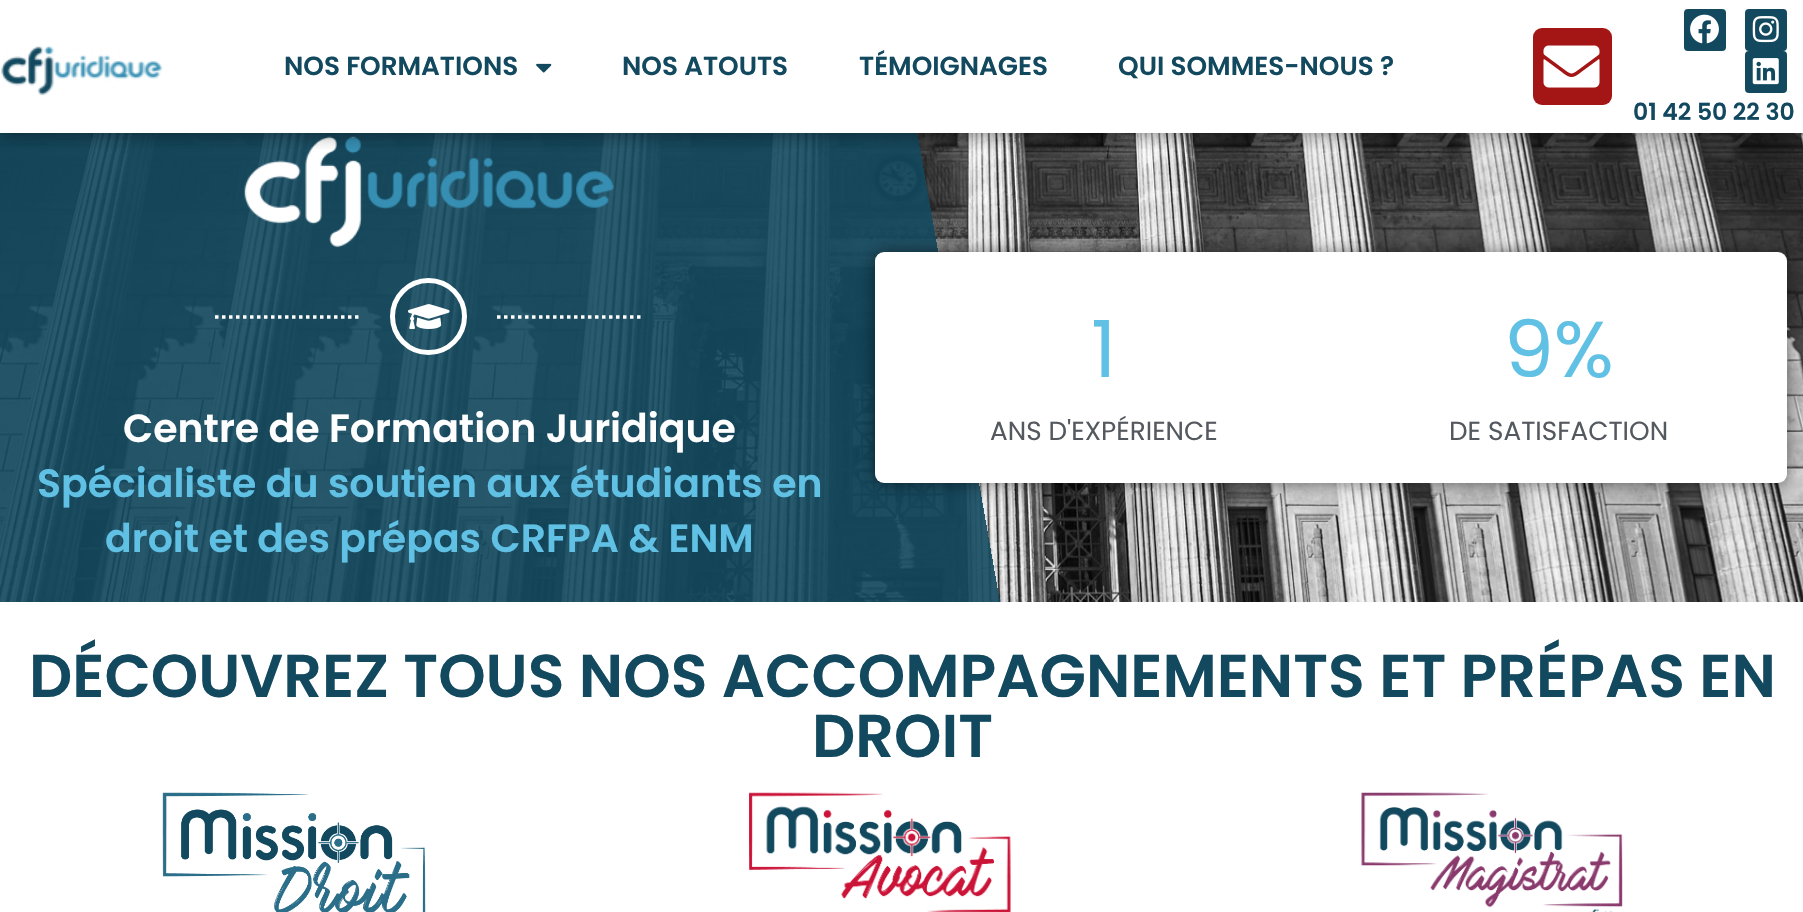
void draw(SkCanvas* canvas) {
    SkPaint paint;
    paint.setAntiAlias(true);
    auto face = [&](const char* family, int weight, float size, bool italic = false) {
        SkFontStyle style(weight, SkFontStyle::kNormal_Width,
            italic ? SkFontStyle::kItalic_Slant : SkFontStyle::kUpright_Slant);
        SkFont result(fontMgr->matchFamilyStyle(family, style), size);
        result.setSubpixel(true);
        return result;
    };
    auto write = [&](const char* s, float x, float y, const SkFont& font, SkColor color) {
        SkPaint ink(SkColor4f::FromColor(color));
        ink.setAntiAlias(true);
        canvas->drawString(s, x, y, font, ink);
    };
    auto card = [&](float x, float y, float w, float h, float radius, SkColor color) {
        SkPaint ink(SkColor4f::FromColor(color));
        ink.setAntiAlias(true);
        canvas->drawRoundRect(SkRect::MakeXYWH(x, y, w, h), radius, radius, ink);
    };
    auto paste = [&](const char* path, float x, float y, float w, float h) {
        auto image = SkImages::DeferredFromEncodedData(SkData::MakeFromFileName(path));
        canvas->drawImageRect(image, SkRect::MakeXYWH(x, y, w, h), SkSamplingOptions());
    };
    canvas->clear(SK_ColorWHITE);
    paste("pic7.png", 0, 133, 1803, 469);
    paste("pic8.png", 244, 136, 370, 112);
    canvas->save();
    canvas->clipRect(SkRect::MakeXYWH(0, 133, 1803, 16));
    paint.setColor(SkColorSetARGB(128, 0, 0, 0));
    paint.setMaskFilter(SkMaskFilter::MakeBlur(kNormal_SkBlurStyle, 9));
    canvas->drawRect(SkRect::MakeXYWH(0, 0, 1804, 133), paint);
    paint.setMaskFilter(nullptr);
    canvas->restore();
    paste("pic1.png", 1, 46, 162, 50);
    auto kFont1 = face("Poppins", 600, 26.25f);
    write("NOS FORMATIONS", 284, 75, kFont1, SkColorSetRGB(19, 73, 95));
    paste("pic2.png", 536, 63, 16, 10);
    write("NOS ATOUTS", 622, 75, kFont1, SkColorSetRGB(19, 73, 95));
    write("TÉMOIGNAGES", 859, 75, kFont1, SkColorSetRGB(19, 73, 95));
    write("QUI SOMMES-NOUS ?", 1118, 75, kFont1, SkColorSetRGB(19, 73, 95));
    card(1533, 28, 79, 77, 9, SkColorSetRGB(164, 21, 21));
    paste("pic3.png", 1543, 45, 57, 43);
    card(1684, 9, 42, 42, 4, SkColorSetRGB(19, 73, 95));
    paste("pic4.png", 1690, 14, 29, 30);
    card(1745, 9, 42, 42, 4, SkColorSetRGB(19, 73, 95));
    paste("pic5.png", 1752, 16, 27, 27);
    card(1745, 51, 42, 42, 4, SkColorSetRGB(19, 73, 95));
    paste("pic6.png", 1752, 58, 27, 27);
    auto kFont2 = face("Poppins", 600, 23.5f);
    write("01 42 50 22 30", 1633, 120, kFont2, SkColorSetRGB(19, 73, 95));
    paint.setMaskFilter(SkMaskFilter::MakeBlur(kNormal_SkBlurStyle, 9));
    canvas->drawRoundRect(SkRect::MakeXYWH(875, 252, 912, 231), 9, 9, paint);
    paint.setMaskFilter(nullptr);
    card(875, 252, 912, 231, 9, SK_ColorWHITE);
    auto kFont3 = face("Poppins", 400, 79);
    write("1", 1091, 377, kFont3, SkColorSetRGB(96, 193, 228));
    auto kFont4 = face("Poppins", 400, 26.25f);
    write("ANS D'EXPÉRIENCE", 990, 440, kFont4, SkColorSetRGB(84, 89, 95));
    write("9%", 1504, 377, kFont3, SkColorSetRGB(96, 193, 228));
    write("DE SATISFACTION", 1449, 440, kFont4, SkColorSetRGB(84, 89, 95));
    paint.setStyle(SkPaint::kStroke_Style);
    paint.setStrokeWidth(3.5f);
    paint.setColor(SK_ColorWHITE);
    paint.setPathEffect(SkDashPathEffect::Make({{3.5f, 3.5f}}, 0));
    canvas->drawPath(SkPathBuilder().moveTo(215, 317).lineTo(360.5f, 317).detach(), paint);
    paint.setPathEffect(nullptr);
    paint.setStrokeWidth(5);
    canvas->drawCircle(428.5f, 316.5f, 36, paint);
    paste("pic9.png", 408, 304, 42, 25);
    paint.setStrokeWidth(3.5f);
    paint.setPathEffect(SkDashPathEffect::Make({{3.5f, 3.5f}}, 0));
    canvas->drawPath(SkPathBuilder().moveTo(497, 317).lineTo(644, 317).detach(), paint);
    paint.setPathEffect(nullptr);
    auto kFont5 = face("Poppins", 600, 39.4f);
    write("Centre de Formation Juridique", 123, 442, kFont5, SK_ColorWHITE);
    write("Spécialiste du soutien aux étudiants en", 37, 497, kFont5, SkColorSetRGB(96, 193, 228));
    write("droit et des prépas CRFPA & ENM", 105, 552, kFont5, SkColorSetRGB(96, 193, 228));
    auto kFont6 = face("Poppins", 600, 60.4f);
    write("DÉCOUVREZ TOUS NOS ACCOMPAGNEMENTS ET PRÉPAS EN", 29, 697, kFont6, SkColorSetRGB(19, 73, 95));
    write("DROIT", 812, 757, kFont6, SkColorSetRGB(19, 73, 95));
    paste("pic10.png", 162, 792, 264, 120);
    paste("pic11.png", 749, 792, 262, 120);
    paste("pic12.png", 1361, 792, 262, 120);
}
